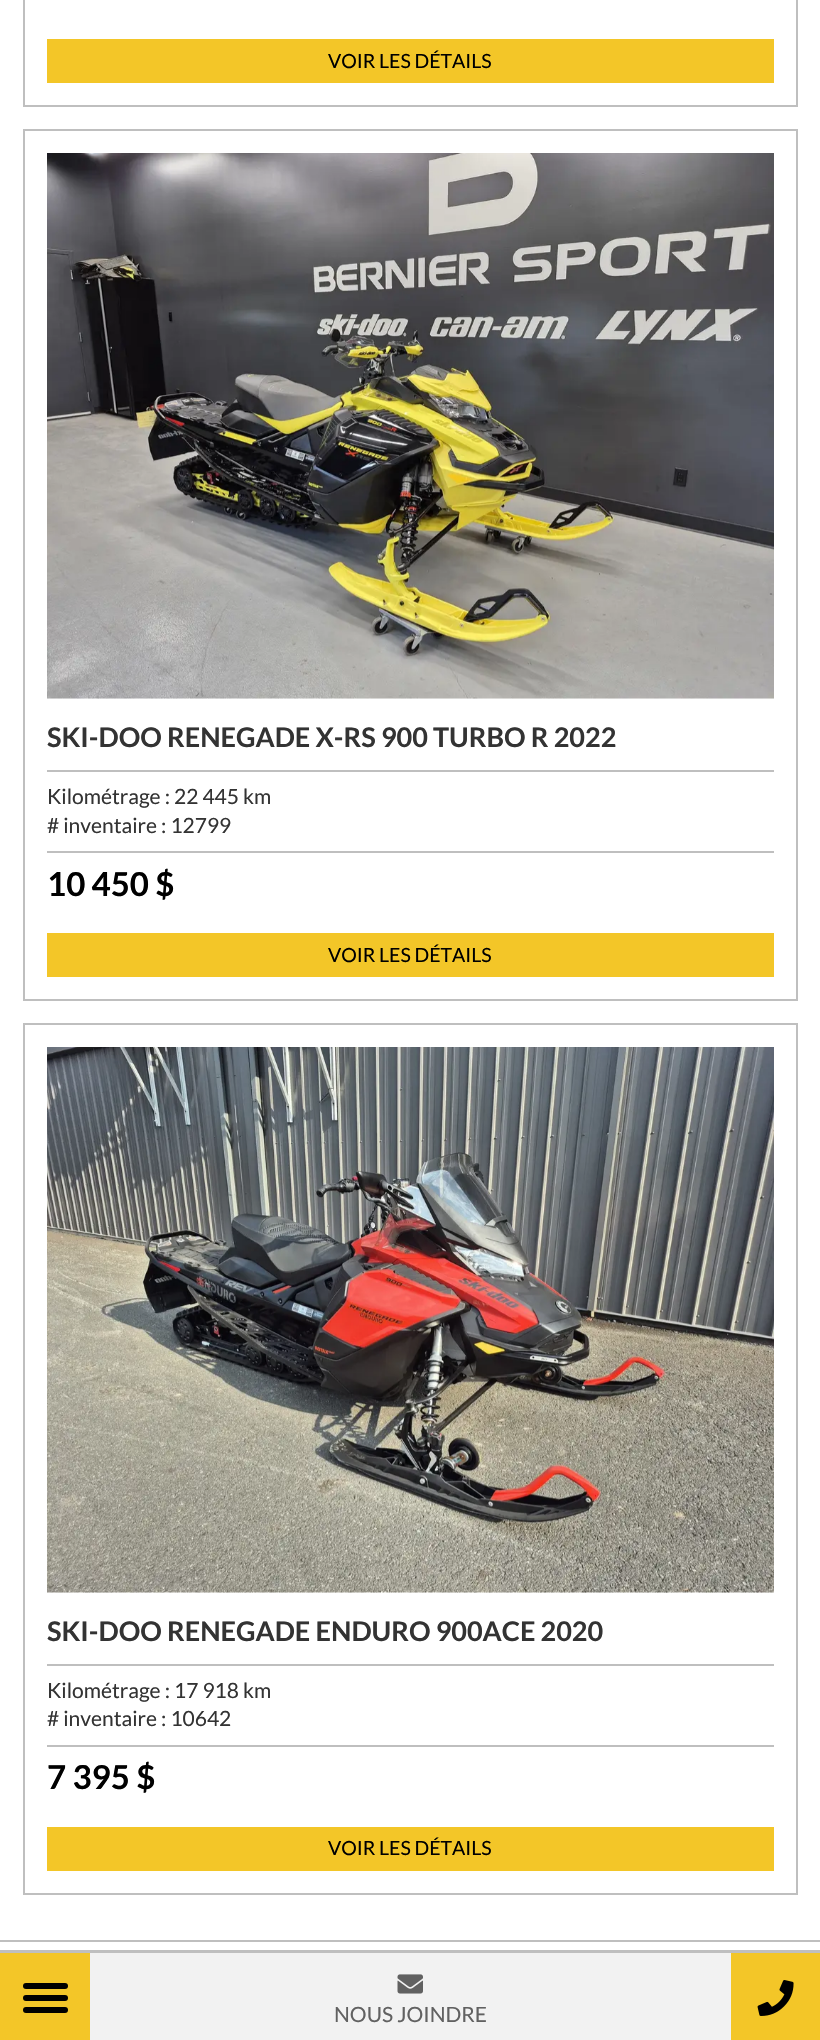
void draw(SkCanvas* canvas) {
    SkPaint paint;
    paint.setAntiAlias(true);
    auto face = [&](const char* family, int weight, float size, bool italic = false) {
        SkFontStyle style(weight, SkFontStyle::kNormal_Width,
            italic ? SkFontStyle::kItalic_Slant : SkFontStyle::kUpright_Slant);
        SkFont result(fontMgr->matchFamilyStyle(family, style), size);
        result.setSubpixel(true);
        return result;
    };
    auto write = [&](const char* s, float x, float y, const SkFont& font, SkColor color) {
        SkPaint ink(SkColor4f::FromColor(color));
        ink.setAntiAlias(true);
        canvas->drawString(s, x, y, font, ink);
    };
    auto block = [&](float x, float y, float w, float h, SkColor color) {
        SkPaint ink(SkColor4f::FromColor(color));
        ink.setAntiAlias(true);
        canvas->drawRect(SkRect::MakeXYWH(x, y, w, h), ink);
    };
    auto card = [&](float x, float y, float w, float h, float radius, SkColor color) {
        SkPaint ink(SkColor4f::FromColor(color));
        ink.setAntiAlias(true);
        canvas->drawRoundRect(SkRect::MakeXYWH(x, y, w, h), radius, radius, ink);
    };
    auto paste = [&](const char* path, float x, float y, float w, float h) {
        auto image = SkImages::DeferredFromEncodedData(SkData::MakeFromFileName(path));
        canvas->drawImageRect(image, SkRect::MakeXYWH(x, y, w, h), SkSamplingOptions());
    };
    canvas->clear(SK_ColorWHITE);
    paint.setStyle(SkPaint::kStroke_Style);
    paint.setStrokeWidth(2);
    paint.setColor(SkColorSetRGB(191, 191, 191));
    canvas->drawRect(SkRect::MakeXYWH(24, -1, 773, 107), paint);
    block(47, 39, 727, 44, SkColorSetRGB(243, 198, 40));
    auto kFont1 = face("Lato", 400, 19.5f);
    write("VOIR LES DÉTAILS", 328, 68, kFont1, SK_ColorBLACK);
    canvas->drawRect(SkRect::MakeXYWH(24, 130, 773, 870), paint);
    paste("pic1.png", 47, 153, 727, 546);
    auto kFont2 = face("Lato", 700, 27);
    write("SKI-DOO RENEGADE X-RS 900 TURBO R 2022", 47, 747, kFont2, SkColorSetRGB(51, 51, 51));
    block(47, 770, 727, 2, SkColorSetRGB(191, 191, 191));
    auto kFont3 = face("Lato", 400, 21);
    write("Kilométrage : 22 445 km", 47, 804, kFont3, SkColorSetRGB(51, 51, 51));
    write("# inventaire : 12799", 47, 833, kFont3, SkColorSetRGB(51, 51, 51));
    block(47, 851, 727, 2, SkColorSetRGB(191, 191, 191));
    auto kFont4 = face("Lato", 700, 33);
    write("10 450 $", 47, 896, kFont4, SK_ColorBLACK);
    block(47, 933, 727, 44, SkColorSetRGB(243, 198, 40));
    write("VOIR LES DÉTAILS", 328, 962, kFont1, SK_ColorBLACK);
    canvas->drawRect(SkRect::MakeXYWH(24, 1024, 773, 870), paint);
    paste("pic2.png", 47, 1047, 727, 546);
    write("SKI-DOO RENEGADE ENDURO 900ACE 2020", 47, 1641, kFont2, SkColorSetRGB(51, 51, 51));
    block(47, 1664, 727, 2, SkColorSetRGB(191, 191, 191));
    write("Kilométrage : 17 918 km", 47, 1698, kFont3, SkColorSetRGB(51, 51, 51));
    write("# inventaire : 10642", 47, 1726, kFont3, SkColorSetRGB(51, 51, 51));
    block(47, 1745, 727, 2, SkColorSetRGB(191, 191, 191));
    write("7 395 $", 47, 1789, kFont4, SK_ColorBLACK);
    block(47, 1827, 727, 44, SkColorSetRGB(243, 198, 40));
    write("VOIR LES DÉTAILS", 328, 1855, kFont1, SK_ColorBLACK);
    block(0, 1940, 820, 2, SkColorSetRGB(191, 191, 191));
    block(90, 1953, 641, 87, SkColorSetRGB(242, 242, 242));
    block(0, 1950, 820, 3, SkColorSetRGB(191, 191, 191));
    block(0, 1953, 90, 87, SkColorSetRGB(243, 198, 40));
    card(23, 1995, 45, 6, 3, SK_ColorBLACK);
    card(23, 1983, 45, 6, 3, SK_ColorBLACK);
    card(23, 2007, 45, 6, 3, SK_ColorBLACK);
    paste("pic3.png", 397, 1974, 26, 20);
    write("NOUS JOINDRE", 334, 2022, kFont3, SkColorSetRGB(97, 97, 97));
    block(731, 1953, 89, 87, SkColorSetRGB(243, 198, 40));
    paste("pic4.png", 757, 1980, 37, 36);
}
